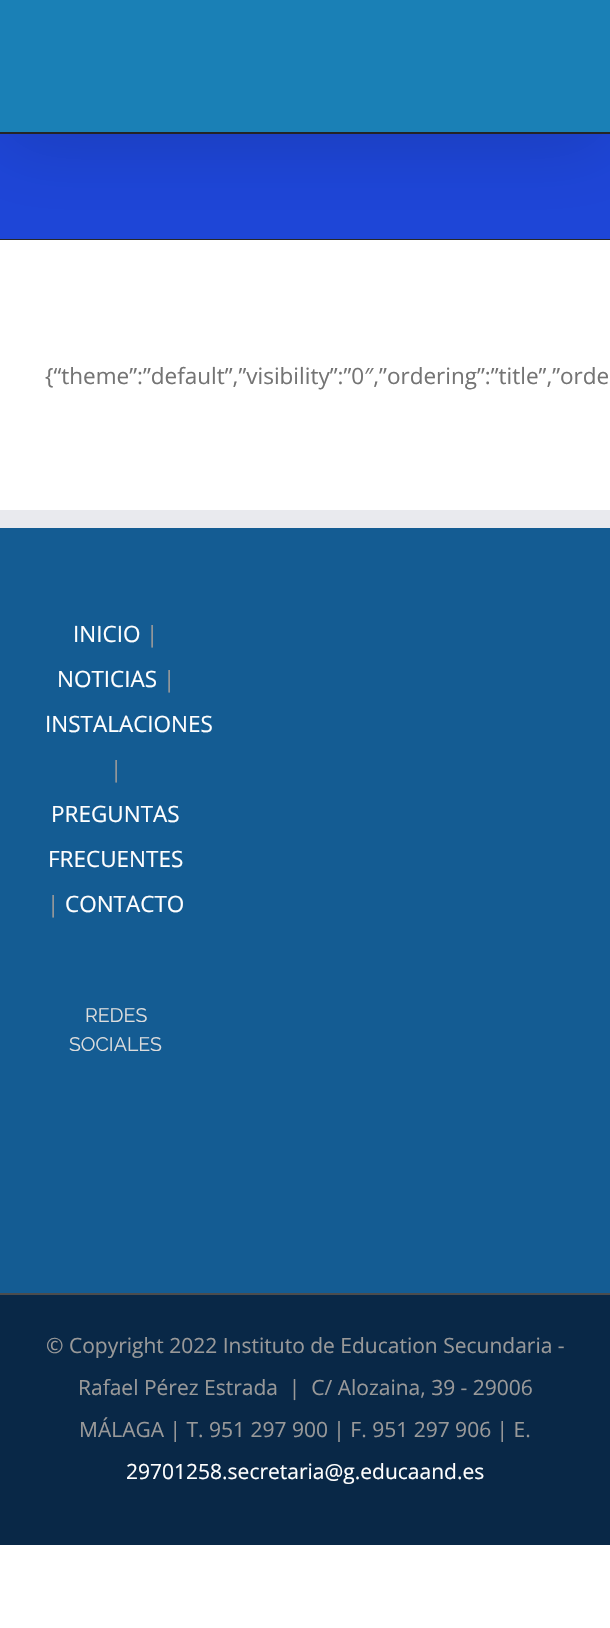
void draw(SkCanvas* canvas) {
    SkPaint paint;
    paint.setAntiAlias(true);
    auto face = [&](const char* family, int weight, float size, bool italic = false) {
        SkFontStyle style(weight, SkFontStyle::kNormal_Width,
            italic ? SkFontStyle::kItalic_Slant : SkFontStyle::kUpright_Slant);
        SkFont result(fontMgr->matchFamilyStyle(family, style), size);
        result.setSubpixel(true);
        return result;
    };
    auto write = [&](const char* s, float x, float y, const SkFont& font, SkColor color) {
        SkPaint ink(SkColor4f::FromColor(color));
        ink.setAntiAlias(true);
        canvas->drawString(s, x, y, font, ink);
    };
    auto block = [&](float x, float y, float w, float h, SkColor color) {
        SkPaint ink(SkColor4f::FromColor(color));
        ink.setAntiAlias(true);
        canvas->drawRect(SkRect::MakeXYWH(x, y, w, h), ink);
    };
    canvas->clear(SK_ColorWHITE);
    block(0, 134, 610, 105, SkColorSetRGB(30, 70, 216));
    block(0, 132, 610, 2, SkColorSetRGB(40, 40, 40));
    block(0, 239, 610, 1, SkColorSetRGB(40, 40, 40));
    paint.setColor(SkColorSetARGB(36, 0, 0, 0));
    paint.setMaskFilter(SkMaskFilter::MakeBlur(kNormal_SkBlurStyle, 37.5f));
    canvas->drawRect(SkRect::MakeXYWH(3, 18, 605, 126), paint);
    paint.setMaskFilter(nullptr);
    block(0, 0, 610, 132, SkColorSetRGB(26, 128, 182));
    auto kFont1 = face("Open Sans", 400, 22.5f);
    write("{“theme”:”default”,”visibility”:”0″,”ordering”:”title”,”orde", 45, 384, kFont1, SkColorSetRGB(116, 116, 116));
    block(0, 528, 610, 765, SkColorSetRGB(20, 92, 147));
    block(0, 510, 610, 18, SkColorSetRGB(233, 234, 238));
    write("INICIO", 73, 642, kFont1, SK_ColorWHITE);
    write("|", 146, 642, kFont1, SkColorSetRGB(153, 153, 153));
    write("NOTICIAS", 57, 687, kFont1, SK_ColorWHITE);
    write("|", 163, 687, kFont1, SkColorSetRGB(153, 153, 153));
    write("INSTALACIONES", 45, 732, kFont1, SK_ColorWHITE);
    write("|", 110, 777, kFont1, SkColorSetRGB(153, 153, 153));
    write("PREGUNTAS", 51, 822, kFont1, SK_ColorWHITE);
    write("FRECUENTES", 48, 867, kFont1, SK_ColorWHITE);
    write("|", 47, 912, kFont1, SkColorSetRGB(153, 153, 153));
    write("CONTACTO", 65, 912, kFont1, SK_ColorWHITE);
    auto kFont2 = face("Raleway", 100, 19.5f);
    write("REDES", 85, 1022, kFont2, SkColorSetRGB(221, 221, 221));
    write("SOCIALES", 69, 1051, kFont2, SkColorSetRGB(221, 221, 221));
    block(0, 1295, 610, 250, SkColorSetRGB(9, 40, 71));
    block(0, 1293, 610, 2, SkColorSetRGB(75, 76, 77));
    auto kFont3 = face("Open Sans", 400, 21);
    write("© Copyright 2022 Instituto de Education Secundaria -", 46, 1353, kFont3, SkColorSetRGB(153, 153, 153));
    write("Rafael Pérez Estrada  |  C/ Alozaina, 39 - 29006", 78, 1395, kFont3, SkColorSetRGB(153, 153, 153));
    write("MÁLAGA | T. 951 297 900 | F. 951 297 906 | E.", 79, 1437, kFont3, SkColorSetRGB(153, 153, 153));
    write("29701258.secretaria@g.educaand.es", 126, 1479, kFont3, SK_ColorWHITE);
}
